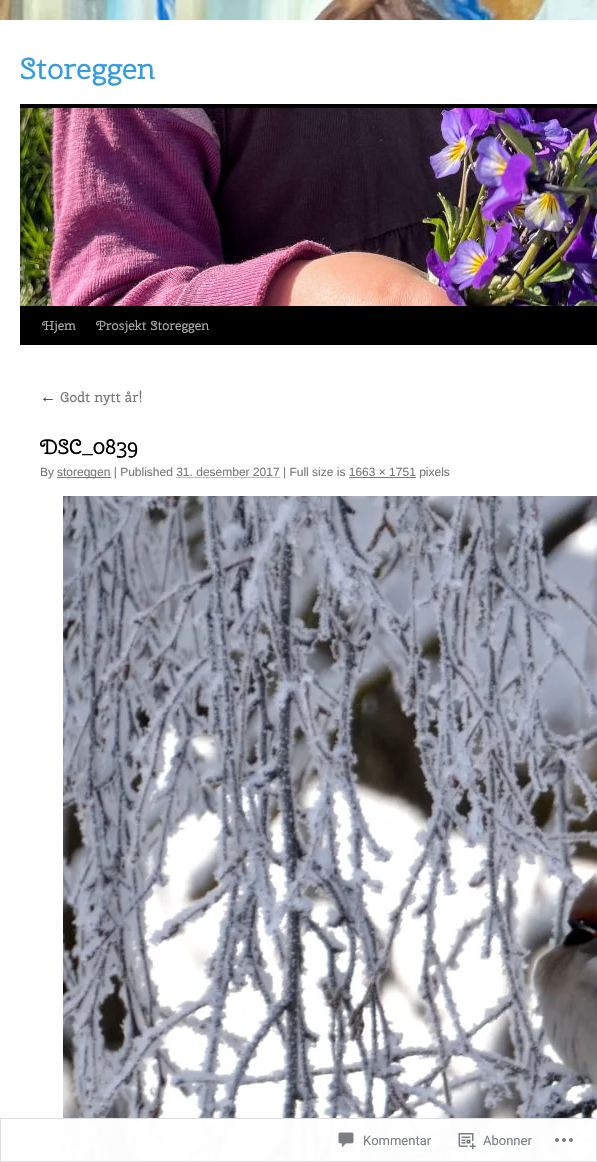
void draw(SkCanvas* canvas) {
    SkPaint paint;
    paint.setAntiAlias(true);
    auto face = [&](const char* family, int weight, float size, bool italic = false) {
        SkFontStyle style(weight, SkFontStyle::kNormal_Width,
            italic ? SkFontStyle::kItalic_Slant : SkFontStyle::kUpright_Slant);
        SkFont result(fontMgr->matchFamilyStyle(family, style), size);
        result.setSubpixel(true);
        return result;
    };
    auto write = [&](const char* s, float x, float y, const SkFont& font, SkColor color) {
        SkPaint ink(SkColor4f::FromColor(color));
        ink.setAntiAlias(true);
        canvas->drawString(s, x, y, font, ink);
    };
    auto block = [&](float x, float y, float w, float h, SkColor color) {
        SkPaint ink(SkColor4f::FromColor(color));
        ink.setAntiAlias(true);
        canvas->drawRect(SkRect::MakeXYWH(x, y, w, h), ink);
    };
    auto paste = [&](const char* path, float x, float y, float w, float h) {
        auto image = SkImages::DeferredFromEncodedData(SkData::MakeFromFileName(path));
        canvas->drawImageRect(image, SkRect::MakeXYWH(x, y, w, h), SkSamplingOptions());
    };
    canvas->clear(SK_ColorWHITE);
    paste("pic1.png", 0, 0, 597, 20);
    auto kFont1 = face("Cherry Swash", 400, 30);
    write("Storeggen", 20, 79, kFont1, SkColorSetRGB(52, 157, 226));
    block(20, 104, 577, 4, SK_ColorBLACK);
    block(20, 306, 577, 39, SK_ColorBLACK);
    paste("pic2.png", 20, 108, 577, 198);
    auto kFont2 = face("Cherry Swash", 400, 13);
    write("Hjem", 42, 330, kFont2, SkColorSetRGB(170, 170, 170));
    write("Prosjekt Storeggen", 96, 330, kFont2, SkColorSetRGB(170, 170, 170));
    auto kFont3 = face("Liberation Sans", 400, 16);
    write("←", 40, 402, kFont3, SkColorSetRGB(51, 51, 51));
    auto kFont4 = face("Cherry Swash", 400, 14);
    write("Godt nytt år!", 60, 402, kFont4, SkColorSetRGB(119, 119, 119));
    auto kFont5 = face("Cherry Swash", 400, 21);
    write("DSC_0839", 40, 454, kFont5, SK_ColorBLACK);
    auto kFont6 = face("Liberation Sans", 400, 12);
    write("By", 40, 476, kFont6, SkColorSetRGB(119, 119, 119));
    block(57, 477, 54, 1, SkColorSetRGB(119, 119, 119));
    write("storeggen | Published 31. desember 2017 | Full size is 1663 × 1751 pixels", 57, 476, kFont6, SkColorSetRGB(119, 119, 119));
    paint.setStyle(SkPaint::kStroke_Style);
    paint.setStrokeWidth(1);
    paint.setColor(SkColorSetRGB(119, 119, 119));
    paint.setPathEffect(SkDashPathEffect::Make({{1, 1}}, 0));
    canvas->drawPath(SkPathBuilder().moveTo(176.5f, 477.5f).lineTo(280, 477.5f).detach(), paint);
    paint.setPathEffect(nullptr);
    block(349, 477, 67, 1, SkColorSetRGB(119, 119, 119));
    paste("pic3.png", 63, 496, 534, 666);
    block(63, 1118, 534, 44, SkColorSetARGB(250, 255, 255, 255));
    paint.setColor(SkColorSetARGB(250, 220, 220, 222));
    canvas->drawRect(SkRect::MakeXYWH(0.5f, 1118.5f, 596, 43), paint);
    paste("pic4.png", 338, 1132, 16, 16);
    auto kFont7 = face("Roboto", 400, 13);
    write("Kommentar", 363, 1145, kFont7, SkColorSetRGB(123, 127, 132));
    paste("pic5.png", 458, 1133, 18, 17);
    write("Abonner", 483, 1145, kFont7, SkColorSetRGB(123, 127, 132));
    paste("pic6.png", 555, 1138, 18, 4);
}
